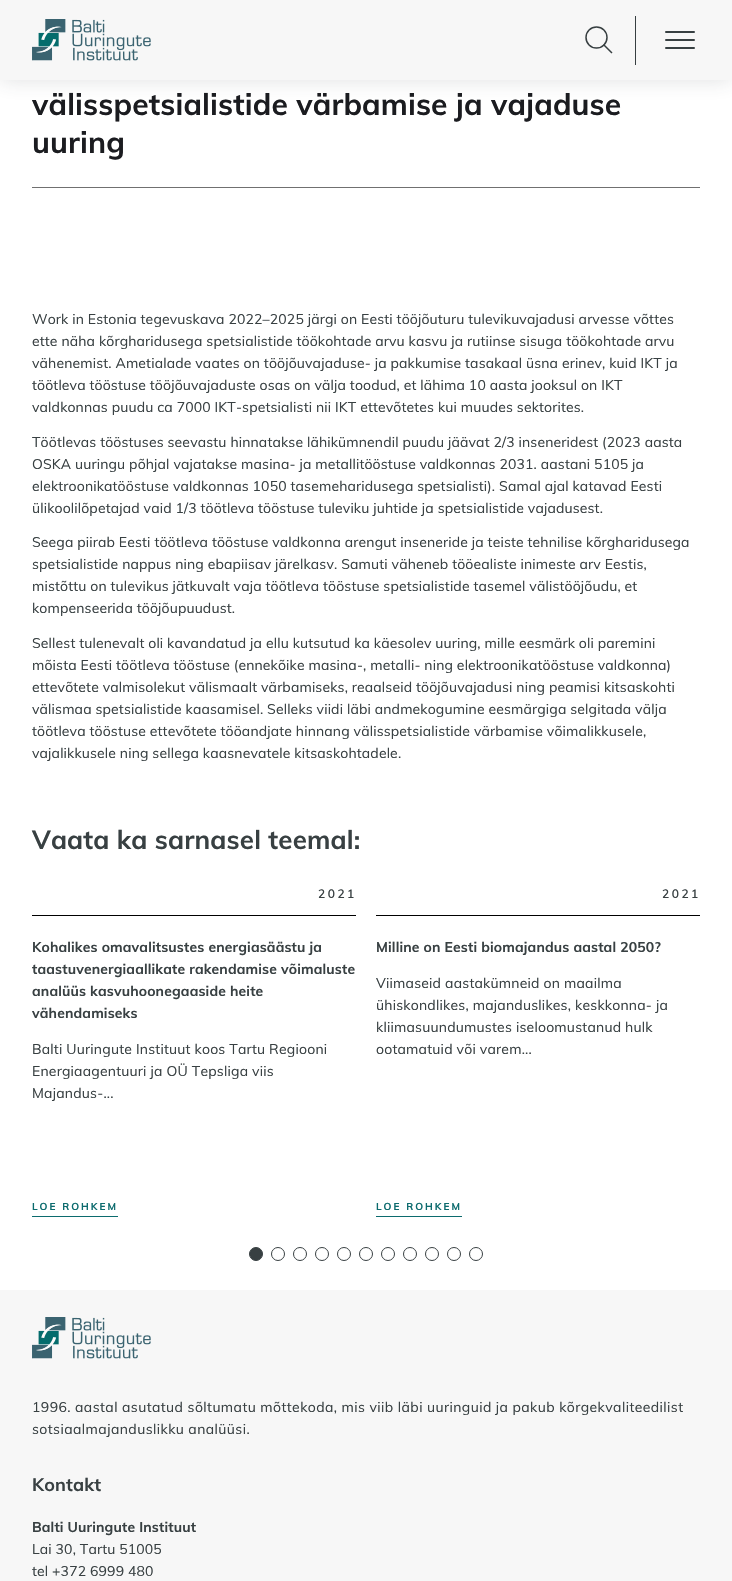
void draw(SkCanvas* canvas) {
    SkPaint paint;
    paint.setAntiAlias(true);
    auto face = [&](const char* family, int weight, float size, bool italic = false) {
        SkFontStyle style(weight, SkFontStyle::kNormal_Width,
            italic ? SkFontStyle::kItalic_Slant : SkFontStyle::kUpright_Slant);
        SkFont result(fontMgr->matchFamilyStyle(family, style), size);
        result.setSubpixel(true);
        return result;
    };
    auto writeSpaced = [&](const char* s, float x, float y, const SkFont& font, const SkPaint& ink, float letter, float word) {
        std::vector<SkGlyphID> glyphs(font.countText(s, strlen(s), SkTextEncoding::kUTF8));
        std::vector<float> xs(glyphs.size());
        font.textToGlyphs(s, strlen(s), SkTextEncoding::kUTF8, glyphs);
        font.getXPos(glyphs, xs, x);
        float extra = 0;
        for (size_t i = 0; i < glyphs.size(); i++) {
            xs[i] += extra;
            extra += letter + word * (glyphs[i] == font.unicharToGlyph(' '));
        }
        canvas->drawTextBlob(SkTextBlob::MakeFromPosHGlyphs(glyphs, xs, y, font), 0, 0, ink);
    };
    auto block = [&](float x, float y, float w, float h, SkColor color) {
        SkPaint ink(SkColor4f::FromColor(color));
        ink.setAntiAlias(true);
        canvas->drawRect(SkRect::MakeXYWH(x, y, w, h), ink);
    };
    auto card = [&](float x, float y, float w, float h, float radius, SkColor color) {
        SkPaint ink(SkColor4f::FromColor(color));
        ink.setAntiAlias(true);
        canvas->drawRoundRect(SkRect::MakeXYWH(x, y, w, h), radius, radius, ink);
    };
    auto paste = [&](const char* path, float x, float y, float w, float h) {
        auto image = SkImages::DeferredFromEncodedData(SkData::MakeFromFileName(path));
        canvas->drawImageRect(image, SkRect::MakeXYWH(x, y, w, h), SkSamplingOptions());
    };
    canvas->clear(SK_ColorWHITE);
    paint.setColor(SkColorSetARGB(41, 56, 64, 66));
    paint.setMaskFilter(SkMaskFilter::MakeBlur(kNormal_SkBlurStyle, 10));
    canvas->drawRect(SkRect::MakeXYWH(0, 0, 732, 80), paint);
    paint.setMaskFilter(nullptr);
    block(0, 0, 732, 80, SkColorSetRGB(247, 247, 247));
    paste("pic1.png", 32, 19, 119, 42);
    paint.setStyle(SkPaint::kStroke_Style);
    paint.setStrokeWidth(1.5f);
    paint.setColor(SkColorSetRGB(55, 63, 65));
    canvas->drawCircle(596.5f, 37.5f, 10.5f, paint);
    canvas->drawPath(SkPathBuilder().moveTo(603.5f, 44.5f).lineTo(612, 53).detach(), paint);
    block(635, 16, 1, 49, SkColorSetRGB(55, 63, 65));
    card(665, 31, 30, 2, 1, SkColorSetRGB(56, 64, 66));
    card(665, 39, 30, 2, 1, SkColorSetRGB(56, 64, 66));
    card(665, 47, 30, 2, 1, SkColorSetRGB(56, 64, 66));
    auto kFont1 = face("Muli", 700, 30);
    paint.setStyle(SkPaint::kFill_Style);
    paint.setColor(SkColorSetRGB(27, 28, 32));
    writeSpaced("välisspetsialistide värbamise ja vajaduse", 32, 115, kFont1, paint, 0.14f, 0);
    writeSpaced("uuring", 32, 153, kFont1, paint, 0.14f, 0);
    block(32, 187, 668, 1, SkColorSetRGB(112, 112, 112));
    auto kFont2 = face("Muli", 400, 14);
    paint.setColor(SkColorSetRGB(56, 64, 66));
    writeSpaced("Work in Estonia tegevuskava 2022–2025 järgi on Eesti tööjõuturu tulevikuvajadusi arvesse võttes", 32, 324, kFont2, paint, 0.14f, 0);
    writeSpaced("ette näha kõrgharidusega spetsialistide töökohtade arvu kasvu ja rutiinse sisuga töökohtade arvu", 32, 346, kFont2, paint, 0.14f, 0);
    writeSpaced("vähenemist. Ametialade vaates on tööjõuvajaduse- ja pakkumise tasakaal üsna erinev, kuid IKT ja", 32, 368, kFont2, paint, 0.14f, 0);
    writeSpaced("töötleva tööstuse tööjõuvajaduste osas on välja toodud, et lähima 10 aasta jooksul on IKT", 32, 390, kFont2, paint, 0.14f, 0);
    writeSpaced("valdkonnas puudu ca 7000 IKT-spetsialisti nii IKT ettevõtetes kui muudes sektorites.", 32, 412, kFont2, paint, 0.14f, 0);
    writeSpaced("Töötlevas tööstuses seevastu hinnatakse lähikümnendil puudu jäävat 2/3 inseneridest (2023 aasta", 32, 447, kFont2, paint, 0.14f, 0);
    writeSpaced("OSKA uuringu põhjal vajatakse masina- ja metallitööstuse valdkonnas 2031. aastani 5105 ja", 32, 469, kFont2, paint, 0.14f, 0);
    writeSpaced("elektroonikatööstuse valdkonnas 1050 tasemeharidusega spetsialisti). Samal ajal katavad Eesti", 32, 491, kFont2, paint, 0.14f, 0);
    writeSpaced("ülikoolilõpetajad vaid 1/3 töötleva tööstuse tuleviku juhtide ja spetsialistide vajadusest.", 32, 513, kFont2, paint, 0.14f, 0);
    writeSpaced("Seega piirab Eesti töötleva tööstuse valdkonna arengut inseneride ja teiste tehnilise kõrgharidusega", 32, 547, kFont2, paint, 0.14f, 0);
    writeSpaced("spetsialistide nappus ning ebapiisav järelkasv. Samuti väheneb tööealiste inimeste arv Eestis,", 32, 569, kFont2, paint, 0.14f, 0);
    writeSpaced("mistõttu on tulevikus jätkuvalt vaja töötleva tööstuse spetsialistide tasemel välistööjõudu, et", 32, 591, kFont2, paint, 0.14f, 0);
    writeSpaced("kompenseerida tööjõupuudust.", 32, 613, kFont2, paint, 0.14f, 0);
    writeSpaced("Sellest tulenevalt oli kavandatud ja ellu kutsutud ka käesolev uuring, mille eesmärk oli paremini", 32, 648, kFont2, paint, 0.14f, 0);
    writeSpaced("mõista Eesti töötleva tööstuse (ennekõike masina-, metalli- ning elektroonikatööstuse valdkonna)", 32, 670, kFont2, paint, 0.14f, 0);
    writeSpaced("ettevõtete valmisolekut välismaalt värbamiseks, reaalseid tööjõuvajadusi ning peamisi kitsaskohti", 32, 692, kFont2, paint, 0.14f, 0);
    writeSpaced("välismaa spetsialistide kaasamisel. Selleks viidi läbi andmekogumine eesmärgiga selgitada välja", 32, 714, kFont2, paint, 0.14f, 0);
    writeSpaced("töötleva tööstuse ettevõtete tööandjate hinnang välisspetsialistide värbamise võimalikkusele,", 32, 736, kFont2, paint, 0.14f, 0);
    writeSpaced("vajalikkusele ning sellega kaasnevatele kitsaskohtadele.", 32, 758, kFont2, paint, 0.14f, 0);
    auto kFont3 = face("Muli", 700, 26);
    writeSpaced("Vaata ka sarnasel teemal:", 32, 849, kFont3, paint, 0.14f, 0);
    block(32, 915, 324, 1, SK_ColorBLACK);
    auto kFont4 = face("Muli", 600, 12);
    writeSpaced("2021", 318, 898, kFont4, paint, 2.5f, 0);
    auto kFont5 = face("Muli", 700, 14);
    writeSpaced("Kohalikes omavalitsustes energiasäästu ja", 32, 952, kFont5, paint, 0.14f, 0);
    writeSpaced("taastuvenergiaallikate rakendamise võimaluste", 32, 974, kFont5, paint, 0.14f, 0);
    writeSpaced("analüüs kasvuhoonegaaside heite", 32, 996, kFont5, paint, 0.14f, 0);
    writeSpaced("vähendamiseks", 32, 1018, kFont5, paint, 0.14f, 0);
    writeSpaced("Balti Uuringute Instituut koos Tartu Regiooni", 32, 1054, kFont2, paint, 0.2f, 0);
    writeSpaced("Energiaagentuuri ja OÜ Tepsliga viis", 32, 1076, kFont2, paint, 0.2f, 0);
    writeSpaced("Majandus-...", 32, 1098, kFont2, paint, 0.2f, 0);
    auto kFont6 = face("Muli", 700, 10);
    paint.setColor(SkColorSetRGB(12, 107, 110));
    writeSpaced("LOE ROHKEM", 32, 1210, kFont6, paint, 2, 0);
    block(32, 1216, 86, 1, SkColorSetRGB(12, 107, 110));
    block(376, 915, 324, 1, SK_ColorBLACK);
    paint.setColor(SkColorSetRGB(56, 64, 66));
    writeSpaced("2021", 662, 898, kFont4, paint, 2.5f, 0);
    writeSpaced("Milline on Eesti biomajandus aastal 2050?", 376, 952, kFont5, paint, 0.14f, 0);
    writeSpaced("Viimaseid aastakümneid on maailma", 376, 988, kFont2, paint, 0.2f, 0);
    writeSpaced("ühiskondlikes, majanduslikes, keskkonna- ja", 376, 1010, kFont2, paint, 0.2f, 0);
    writeSpaced("kliimasuundumustes iseloomustanud hulk", 376, 1032, kFont2, paint, 0.2f, 0);
    writeSpaced("ootamatuid või varem...", 376, 1054, kFont2, paint, 0.2f, 0);
    paint.setColor(SkColorSetRGB(12, 107, 110));
    writeSpaced("LOE ROHKEM", 376, 1210, kFont6, paint, 2, 0);
    block(376, 1216, 86, 1, SkColorSetRGB(12, 107, 110));
    paint.setColor(SkColorSetRGB(56, 64, 66));
    canvas->drawCircle(256, 1254, 6.5f, paint);
    paint.setStyle(SkPaint::kStroke_Style);
    paint.setStrokeWidth(1);
    canvas->drawCircle(256, 1254, 6.5f, paint);
    canvas->drawCircle(278, 1254, 6.5f, paint);
    canvas->drawCircle(300, 1254, 6.5f, paint);
    canvas->drawCircle(322, 1254, 6.5f, paint);
    canvas->drawCircle(344, 1254, 6.5f, paint);
    canvas->drawCircle(366, 1254, 6.5f, paint);
    canvas->drawCircle(388, 1254, 6.5f, paint);
    canvas->drawCircle(410, 1254, 6.5f, paint);
    canvas->drawCircle(432, 1254, 6.5f, paint);
    canvas->drawCircle(454, 1254, 6.5f, paint);
    canvas->drawCircle(476, 1254, 6.5f, paint);
    block(0, 1290, 732, 291, SkColorSetRGB(247, 247, 247));
    paste("pic1.png", 32, 1317, 119, 42);
    paint.setStyle(SkPaint::kFill_Style);
    writeSpaced("1996. aastal asutatud sõltumatu mõttekoda, mis viib läbi uuringuid ja pakub kõrgekvaliteedilist", 32, 1412, kFont2, paint, 0.42f, 0);
    writeSpaced("sotsiaalmajanduslikku analüüsi.", 32, 1434, kFont2, paint, 0.42f, 0);
    auto kFont7 = face("Muli", 700, 18);
    writeSpaced("Kontakt", 32, 1491, kFont7, paint, 0.14f, 0);
    writeSpaced("Balti Uuringute Instituut", 32, 1532, kFont5, paint, 0.14f, 0);
    writeSpaced("Lai 30, Tartu 51005", 32, 1554, kFont2, paint, 0.14f, 0);
    writeSpaced("tel +372 6999 480", 32, 1576, kFont2, paint, 0.14f, 0);
}
